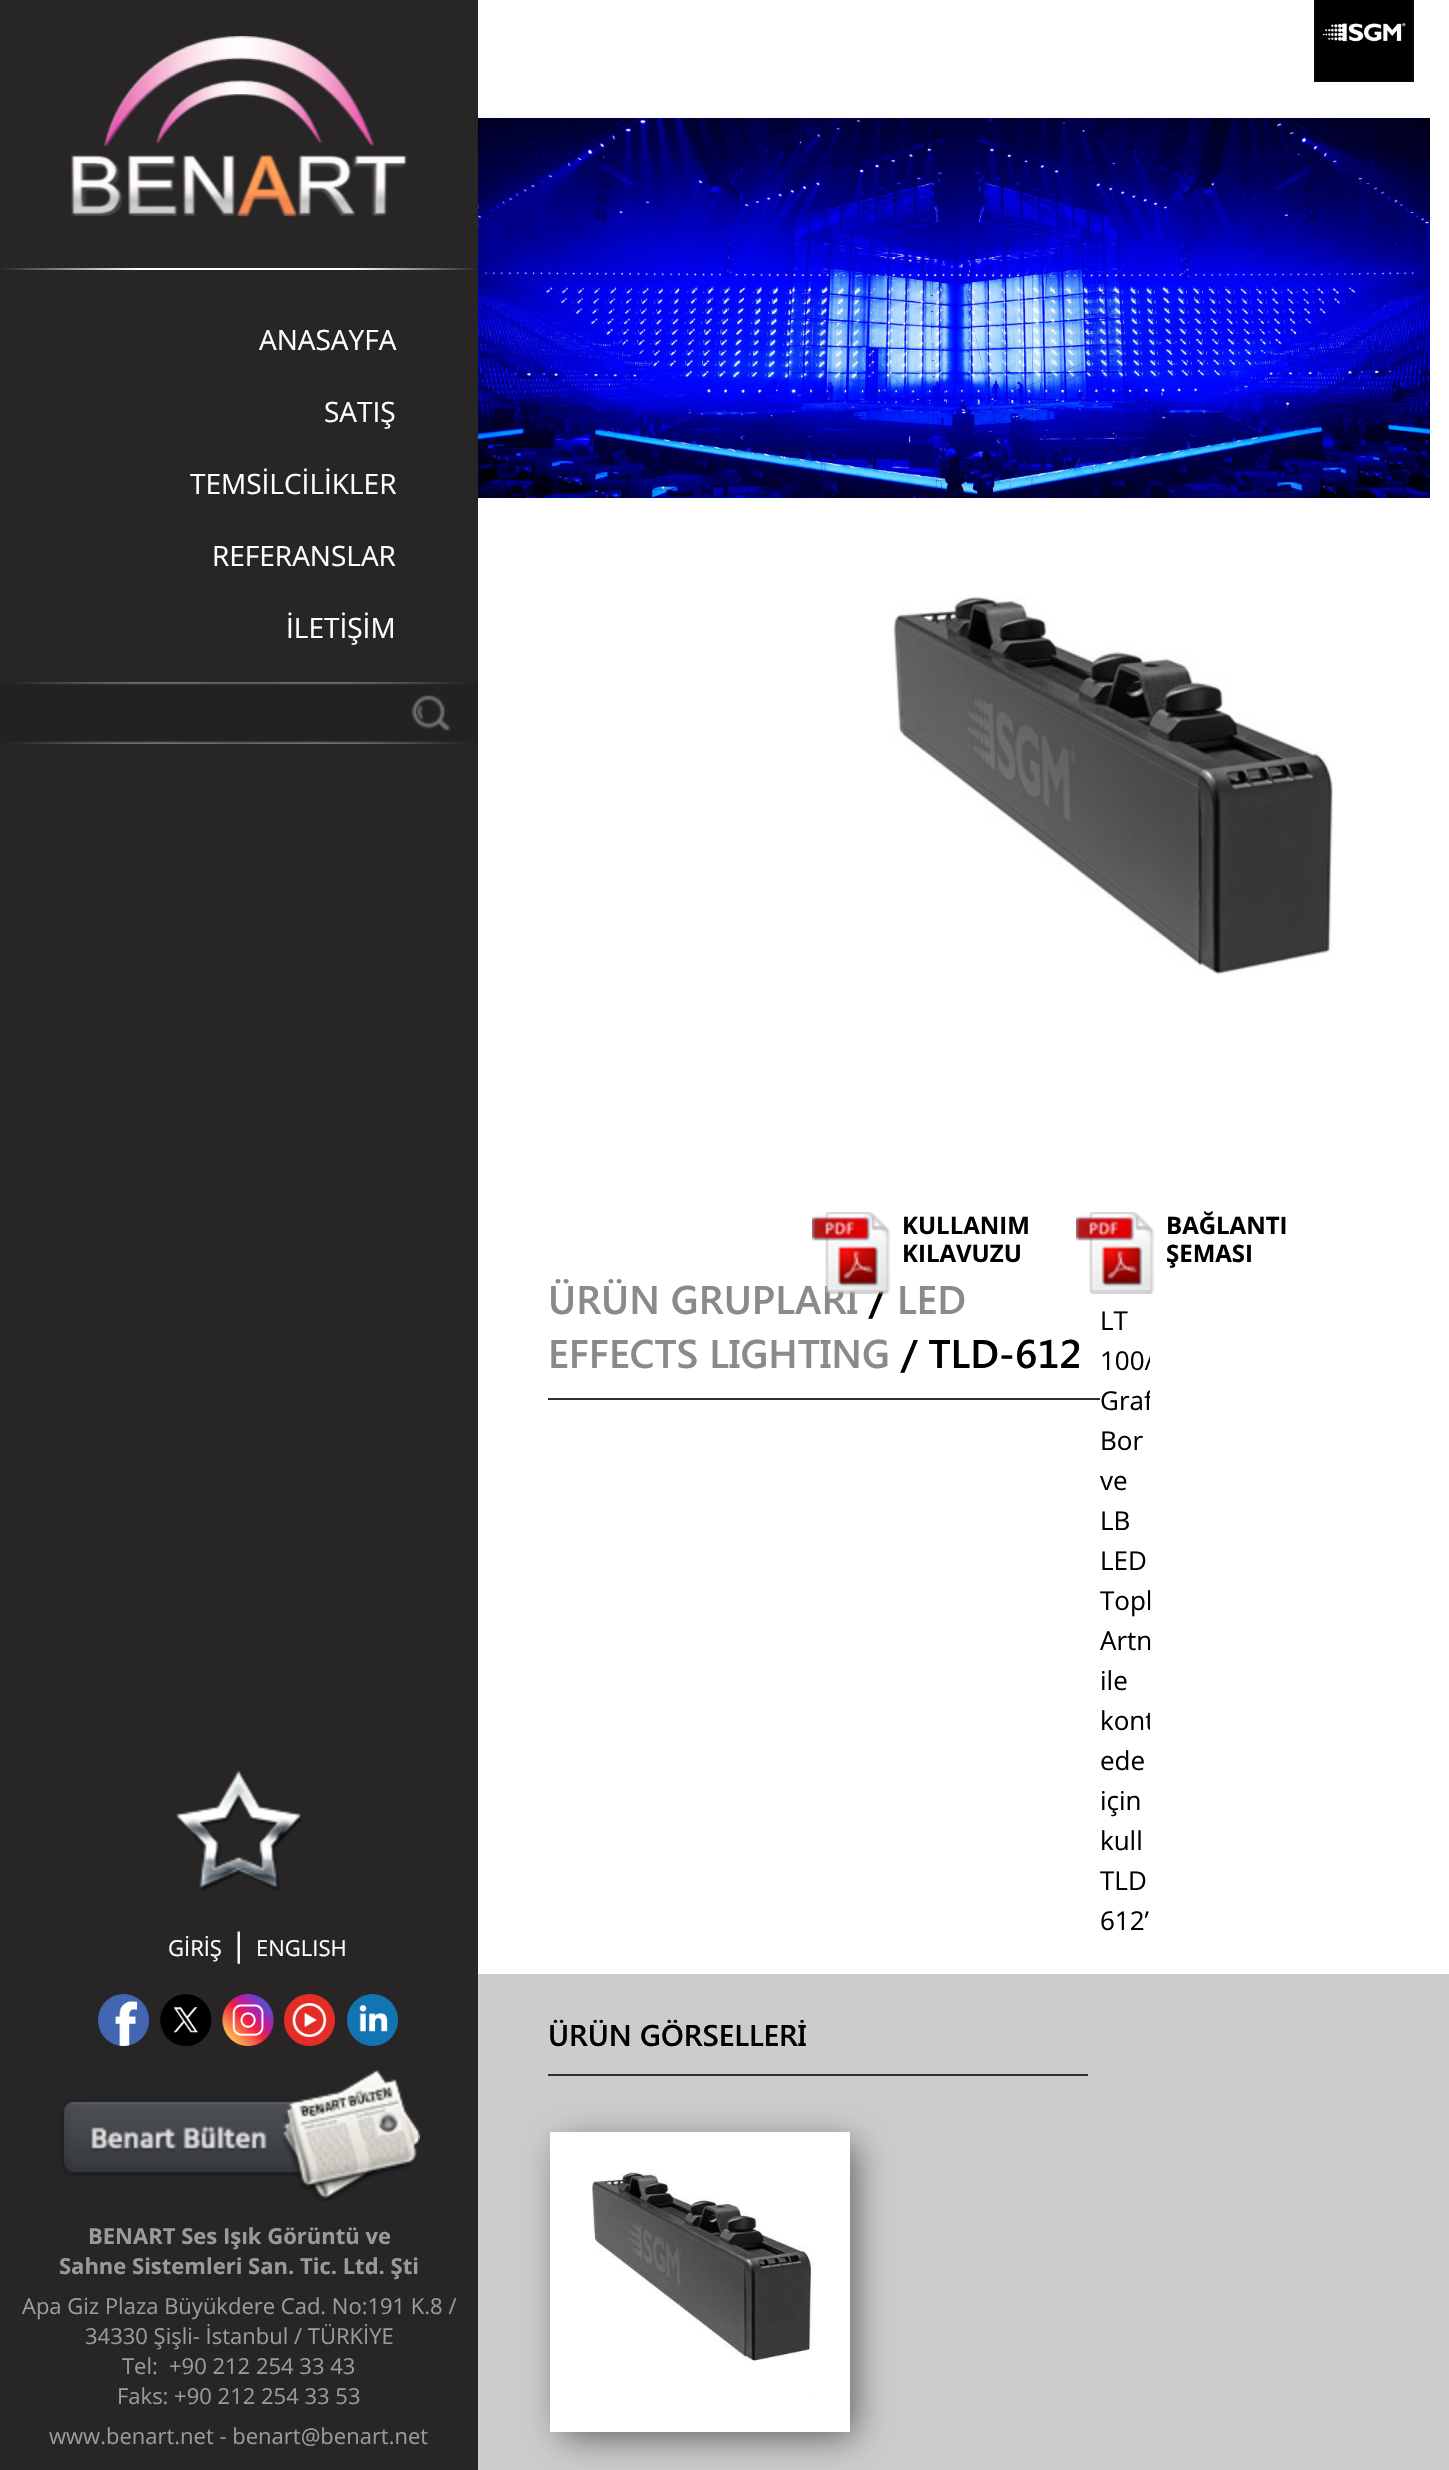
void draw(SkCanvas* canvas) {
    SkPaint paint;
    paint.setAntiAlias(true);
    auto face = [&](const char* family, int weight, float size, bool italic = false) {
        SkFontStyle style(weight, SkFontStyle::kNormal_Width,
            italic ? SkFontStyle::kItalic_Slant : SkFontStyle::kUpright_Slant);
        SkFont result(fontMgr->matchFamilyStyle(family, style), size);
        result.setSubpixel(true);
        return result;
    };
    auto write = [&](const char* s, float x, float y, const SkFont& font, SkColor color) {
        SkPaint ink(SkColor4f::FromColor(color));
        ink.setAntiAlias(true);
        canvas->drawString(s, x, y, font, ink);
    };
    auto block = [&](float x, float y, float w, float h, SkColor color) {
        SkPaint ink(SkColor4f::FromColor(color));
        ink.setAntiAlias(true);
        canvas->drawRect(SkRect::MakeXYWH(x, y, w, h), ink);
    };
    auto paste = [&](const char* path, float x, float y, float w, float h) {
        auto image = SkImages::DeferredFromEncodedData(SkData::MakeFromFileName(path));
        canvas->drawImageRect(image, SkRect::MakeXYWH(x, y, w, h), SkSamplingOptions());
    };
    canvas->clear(SK_ColorWHITE);
    block(0, 0, 478, 2470, SkColorSetRGB(39, 37, 37));
    paste("pic1.png", 71, 36, 336, 181);
    {
        const SkColor colors[] = {SkColorSetRGB(39, 37, 37), SK_ColorWHITE, SK_ColorWHITE, SkColorSetRGB(39, 37, 37)};
        const float stops[] = {0, 0.29f, 0.74f, 1};
        const SkPoint ends[] = {{0, 269}, {478, 269}};
        paint.setShader(SkGradientShader::MakeLinear(ends, colors, stops, 4, SkTileMode::kClamp));
        paint.setAlpha(255);
    }
    canvas->drawRect(SkRect::MakeXYWH(0, 268, 478, 2), paint);
    auto kFont1 = face("Open Sans", 400, 28);
    write("ANASAYFA", 259, 350, kFont1, SK_ColorWHITE);
    write("SATIŞ", 324, 422, kFont1, SK_ColorWHITE);
    write("TEMSİLCİLİKLER", 190, 494, kFont1, SK_ColorWHITE);
    write("REFERANSLAR", 212, 566, kFont1, SK_ColorWHITE);
    write("İLETİŞİM", 286, 638, kFont1, SK_ColorWHITE);
    paste("pic2.png", 0, 682, 478, 62);
    paste("pic3.png", 175, 1770, 127, 121);
    auto kFont2 = face("Open Sans", 400, 22);
    write("GİRİŞ", 168, 1956, kFont2, SK_ColorWHITE);
    auto kFont3 = face("Open Sans", 400, 32);
    write("|", 230, 1956, kFont3, SK_ColorWHITE);
    write("ENGLISH", 256, 1956, kFont2, SK_ColorWHITE);
    paste("pic4.png", 98, 1994, 300, 52);
    paste("pic5.png", 61, 2070, 359, 132);
    auto kFont4 = face("Open Sans", 700, 22);
    write("BENART Ses Işık Görüntü ve", 88, 2244, kFont4, SkColorSetRGB(154, 153, 158));
    write("Sahne Sistemleri San. Tic. Ltd. Şti", 59, 2274, kFont4, SkColorSetRGB(154, 153, 158));
    write("Apa Giz Plaza Büyükdere Cad. No:191 K.8 /", 22, 2314, kFont2, SkColorSetRGB(154, 153, 158));
    write("34330 Şişli- İstanbul / TÜRKİYE", 85, 2344, kFont2, SkColorSetRGB(154, 153, 158));
    write("Tel:", 122, 2374, kFont2, SkColorSetRGB(154, 153, 158));
    write("+90 212 254 33 43", 169, 2374, kFont2, SkColorSetRGB(154, 153, 158));
    write("Faks: +90 212 254 33 53", 117, 2404, kFont2, SkColorSetRGB(154, 153, 158));
    write("www.benart.net - benart@benart.net", 49, 2444, kFont2, SkColorSetRGB(154, 153, 158));
    paste("pic6.png", 1314, 0, 100, 82);
    paste("pic7.png", 478, 118, 952, 380);
    paste("pic8.png", 893, 596, 440, 378);
    auto kFont5 = face("Segoe UI", 600, 40);
    write("ÜRÜN GRUPLARI", 548, 1314, kFont5, SkColorSetRGB(138, 138, 138));
    write("/", 869, 1314, kFont5, SK_ColorBLACK);
    paste("pic9.png", 812, 1212, 78, 82);
    auto kFont6 = face("Open Sans", 700, 24);
    write("KULLANIM", 902, 1234, kFont6, SK_ColorBLACK);
    write("KILAVUZU", 902, 1262, kFont6, SK_ColorBLACK);
    paste("pic10.png", 1076, 1212, 78, 82);
    write("BAĞLANTI", 1166, 1234, kFont6, SK_ColorBLACK);
    write("ŞEMASI", 1166, 1262, kFont6, SK_ColorBLACK);
    block(548, 1398, 552, 2, SkColorSetRGB(46, 46, 46));
    write("LED", 897, 1314, kFont5, SkColorSetRGB(138, 138, 138));
    write("EFFECTS LIGHTING", 548, 1368, kFont5, SkColorSetRGB(138, 138, 138));
    write("/ TLD-612", 901, 1368, kFont5, SK_ColorBLACK);
    auto kFont7 = face("Open Sans", 400, 26);
    write("LT", 1100, 1330, kFont7, SK_ColorBLACK);
    canvas->save();
    canvas->clipRect(SkRect::MakeXYWH(1100, 1300, 50, 654));
    write("100/", 1100, 1370, kFont7, SK_ColorBLACK);
    write("Graf", 1100, 1410, kFont7, SK_ColorBLACK);
    canvas->restore();
    write("Bor", 1100, 1450, kFont7, SK_ColorBLACK);
    write("ve", 1100, 1490, kFont7, SK_ColorBLACK);
    write("LB", 1100, 1530, kFont7, SK_ColorBLACK);
    write("LED", 1100, 1570, kFont7, SK_ColorBLACK);
    write("Topl", 1100, 1610, kFont7, SK_ColorBLACK);
    write("Artn", 1100, 1650, kFont7, SK_ColorBLACK);
    write("ile", 1100, 1690, kFont7, SK_ColorBLACK);
    canvas->save();
    canvas->clipRect(SkRect::MakeXYWH(1100, 1300, 50, 654));
    write("kont", 1100, 1730, kFont7, SK_ColorBLACK);
    canvas->restore();
    write("ede", 1100, 1770, kFont7, SK_ColorBLACK);
    write("için", 1100, 1810, kFont7, SK_ColorBLACK);
    write("kull", 1100, 1850, kFont7, SK_ColorBLACK);
    write("TLD", 1100, 1890, kFont7, SK_ColorBLACK);
    write("612’", 1100, 1930, kFont7, SK_ColorBLACK);
    block(478, 1974, 971, 496, SkColorSetRGB(204, 204, 204));
    block(548, 2074, 540, 2, SkColorSetRGB(46, 46, 46));
    auto kFont8 = face("Segoe UI", 600, 30);
    write("ÜRÜN GÖRSELLERİ", 548, 2046, kFont8, SK_ColorBLACK);
    paint.setShader(nullptr);
    paint.setColor(SkColorSetARGB(140, 0, 0, 0));
    paint.setMaskFilter(SkMaskFilter::MakeBlur(kNormal_SkBlurStyle, 17));
    canvas->drawRect(SkRect::MakeXYWH(562, 2144, 292, 292), paint);
    paint.setMaskFilter(nullptr);
    paste("pic11.png", 550, 2132, 300, 300);
}
